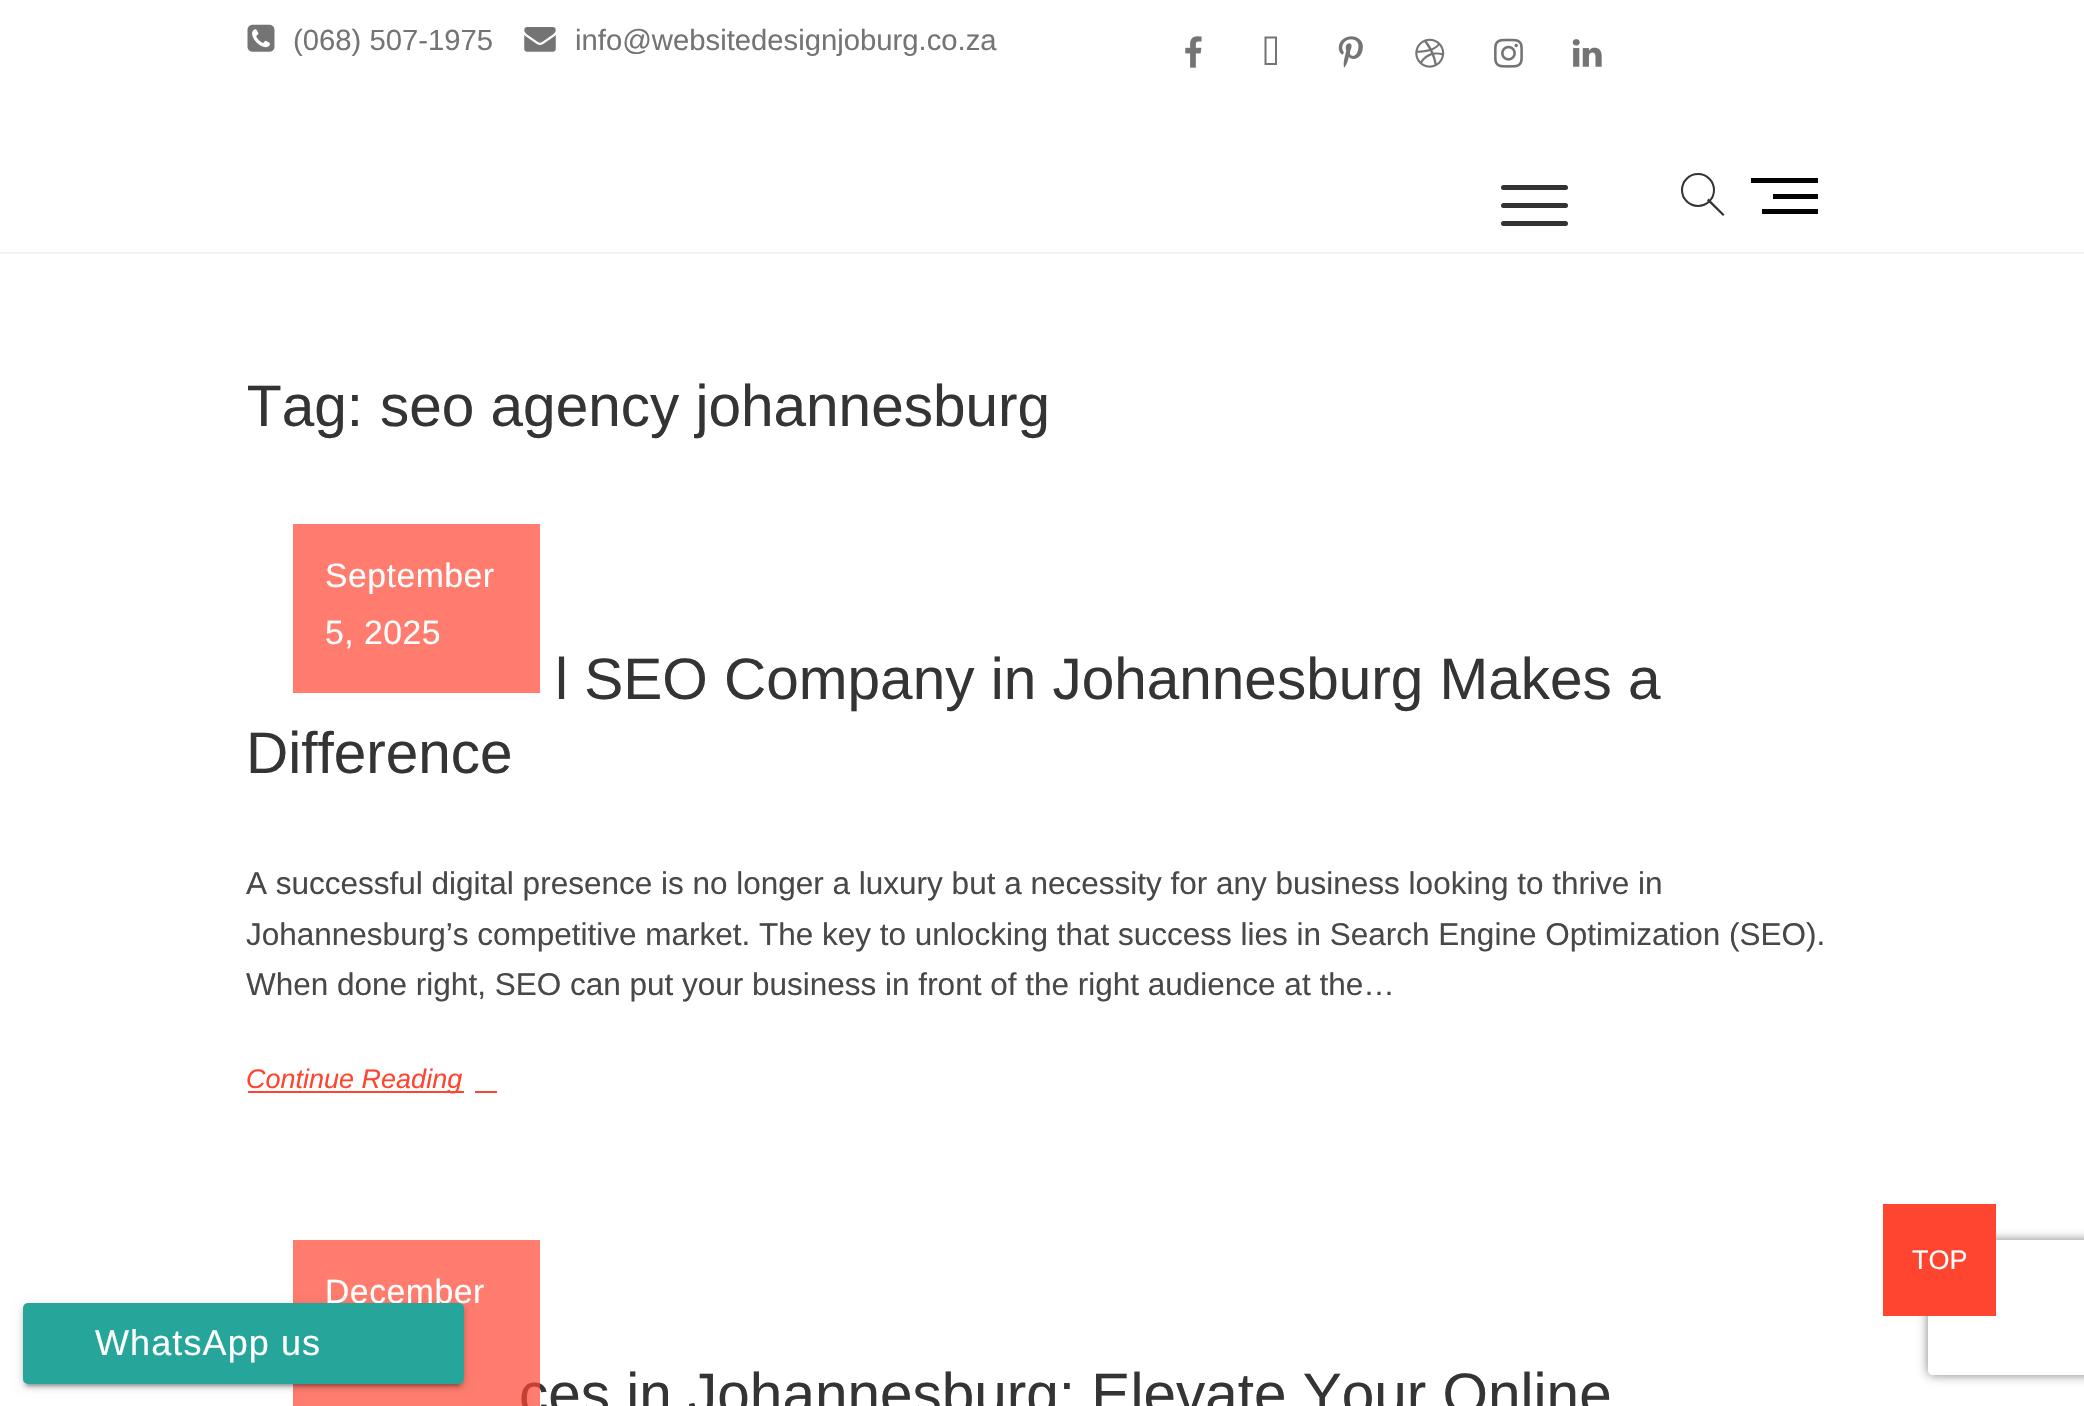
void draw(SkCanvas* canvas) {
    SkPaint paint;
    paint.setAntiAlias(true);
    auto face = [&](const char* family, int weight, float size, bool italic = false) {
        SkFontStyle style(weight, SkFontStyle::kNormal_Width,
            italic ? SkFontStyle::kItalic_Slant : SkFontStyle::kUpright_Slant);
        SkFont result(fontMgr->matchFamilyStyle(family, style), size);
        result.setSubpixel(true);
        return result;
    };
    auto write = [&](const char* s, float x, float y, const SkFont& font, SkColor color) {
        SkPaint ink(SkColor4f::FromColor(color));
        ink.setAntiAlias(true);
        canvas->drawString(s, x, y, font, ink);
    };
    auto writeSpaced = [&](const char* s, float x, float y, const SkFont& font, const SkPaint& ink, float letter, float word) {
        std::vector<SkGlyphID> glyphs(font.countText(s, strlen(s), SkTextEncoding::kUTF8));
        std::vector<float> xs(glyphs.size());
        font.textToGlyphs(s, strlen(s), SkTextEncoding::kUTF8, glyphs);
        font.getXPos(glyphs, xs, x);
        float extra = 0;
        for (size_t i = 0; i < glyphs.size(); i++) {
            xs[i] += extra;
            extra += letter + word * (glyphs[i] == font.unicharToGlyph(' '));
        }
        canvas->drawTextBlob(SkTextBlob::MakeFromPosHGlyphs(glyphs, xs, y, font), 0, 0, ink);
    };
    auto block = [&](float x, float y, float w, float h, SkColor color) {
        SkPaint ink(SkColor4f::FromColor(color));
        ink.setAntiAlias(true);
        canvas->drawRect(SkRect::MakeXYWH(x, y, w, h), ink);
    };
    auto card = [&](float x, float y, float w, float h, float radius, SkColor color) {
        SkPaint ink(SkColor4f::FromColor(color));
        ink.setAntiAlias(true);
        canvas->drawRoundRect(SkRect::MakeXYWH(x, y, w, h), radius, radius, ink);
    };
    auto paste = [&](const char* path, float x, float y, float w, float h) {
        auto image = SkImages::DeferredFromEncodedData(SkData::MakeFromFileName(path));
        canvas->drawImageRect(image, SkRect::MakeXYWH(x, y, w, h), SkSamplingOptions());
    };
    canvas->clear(SK_ColorWHITE);
    auto kFont1 = face("Liberation Sans", 400, 58.5f);
    write("ces in Johannesburg: Elevate Your Online", 519, 1414, kFont1, SkColorSetRGB(52, 52, 52));
    block(293, 1240, 247, 166, SkColorSetARGB(179, 255, 69, 48));
    paint.setColor(SkColorSetARGB(51, 0, 0, 0));
    paint.setMaskFilter(SkMaskFilter::MakeBlur(kNormal_SkBlurStyle, 1));
    canvas->drawRect(SkRect::MakeXYWH(27, 1314, 432, 72), paint);
    paint.setMaskFilter(nullptr);
    paint.setColor(SkColorSetARGB(31, 0, 0, 0));
    paint.setMaskFilter(SkMaskFilter::MakeBlur(kNormal_SkBlurStyle, 5.5f));
    canvas->drawRoundRect(SkRect::MakeXYWH(23, 1305, 441, 81), 5, 5, paint);
    paint.setMaskFilter(nullptr);
    paint.setColor(SkColorSetARGB(36, 0, 0, 0));
    paint.setMaskFilter(SkMaskFilter::MakeBlur(kNormal_SkBlurStyle, 2));
    canvas->drawRoundRect(SkRect::MakeXYWH(23, 1307, 441, 81), 5, 5, paint);
    paint.setMaskFilter(nullptr);
    auto kFont2 = face("Liberation Sans", 400, 33.75f);
    paint.setColor(SK_ColorWHITE);
    writeSpaced("December", 325, 1303, kFont2, paint, 0.5f, 0);
    card(23, 1303, 441, 81, 5, SkColorSetRGB(38, 166, 154));
    auto kFont3 = face("Liberation Sans", 400, 36);
    writeSpaced("WhatsApp us", 95, 1355, kFont3, paint, 1.1f, 0);
    paste("pic1.png", 247, 24, 28, 28);
    auto kFont4 = face("Liberation Sans", 400, 29.25f);
    write("(068) 507-1975", 293, 50, kFont4, SkColorSetRGB(116, 116, 116));
    paste("pic2.png", 524, 27, 32, 25);
    write("info@websitedesignjoburg.co.za", 575, 50, kFont4, SkColorSetRGB(116, 116, 116));
    paste("pic3.png", 1185, 36, 17, 32);
    paint.setColor(SkColorSetRGB(116, 116, 116));
    canvas->drawPath(SkPathBuilder().moveTo(1266.5f, 63).lineTo(1266.5f, 38.5f).lineTo(1275, 38.5f).lineTo(1275, 63).close().moveTo(1264.5f, 65).lineTo(1277, 65).lineTo(1277, 36.5f).lineTo(1264.5f, 36.5f).close().detach(), paint);
    paste("pic4.png", 1338, 36, 25, 32);
    paste("pic5.png", 1415, 38, 30, 30);
    paste("pic6.png", 1494, 38, 29, 30);
    paste("pic7.png", 1572, 39, 30, 28);
    block(0, 252, 2084, 2, SkColorSetRGB(242, 242, 242));
    card(1501, 203, 67, 5, 2.5f, SkColorSetRGB(51, 51, 51));
    card(1501, 185, 67, 5, 2.5f, SkColorSetRGB(51, 51, 51));
    card(1501, 221, 67, 5, 2.5f, SkColorSetRGB(51, 51, 51));
    paint.setStyle(SkPaint::kStroke_Style);
    paint.setStrokeWidth(2);
    paint.setColor(SkColorSetRGB(51, 51, 51));
    canvas->drawCircle(1698, 190, 16, paint);
    paint.setStyle(SkPaint::kFill_Style);
    canvas->drawPath(SkPathBuilder().moveTo(1707, 200.5f).lineTo(1708.5f, 198.5f).lineTo(1724.5f, 214.5f).lineTo(1723, 216).close().detach(), paint);
    block(1773, 194, 45, 5, SK_ColorBLACK);
    block(1751, 178, 67, 5, SK_ColorBLACK);
    block(1762, 209, 56, 5, SK_ColorBLACK);
    canvas->save();
    canvas->clipRect(SkRect::MakeXYWH(248, 367, 1593, 157));
    write("Tag:", 246, 426, kFont1, SkColorSetRGB(52, 52, 52));
    canvas->restore();
    write("seo agency johannesburg", 380, 426, kFont1, SkColorSetRGB(52, 52, 52));
    block(293, 524, 247, 169, SkColorSetARGB(179, 255, 69, 48));
    paint.setColor(SK_ColorWHITE);
    writeSpaced("September", 325, 587, kFont2, paint, 0.5f, 0);
    writeSpaced("5, 2025", 325, 644, kFont2, paint, 0.5f, 0);
    write("l SEO Company in Johannesburg Makes a", 555, 699, kFont1, SkColorSetRGB(52, 52, 52));
    write("Difference", 246, 773, kFont1, SkColorSetRGB(52, 52, 52));
    auto kFont5 = face("Liberation Sans", 400, 31.5f);
    write("A successful digital presence is no longer a luxury but a necessity for any business looking to thrive in", 246, 894, kFont5, SkColorSetRGB(72, 72, 72));
    write("Johannesburg’s competitive market. The key to unlocking that success lies in Search Engine Optimization (SEO).", 246, 945, kFont5, SkColorSetRGB(72, 72, 72));
    write("When done right, SEO can put your business in front of the right audience at the…", 246, 995, kFont5, SkColorSetRGB(72, 72, 72));
    block(248, 1091, 216, 2, SkColorSetRGB(255, 69, 48));
    auto kFont6 = face("Liberation Sans", 400, 27, true);
    write("Continue Reading", 246, 1088, kFont6, SkColorSetRGB(255, 69, 48));
    block(475, 1091, 22, 2, SkColorSetRGB(255, 69, 48));
    canvas->save();
    canvas->clipPath(SkPathBuilder(SkPathFillType::kEvenOdd).moveTo(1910, 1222).lineTo(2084, 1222).lineTo(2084, 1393).lineTo(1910, 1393).close().moveTo(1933, 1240).lineTo(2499, 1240).cubicTo(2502, 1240, 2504, 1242, 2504, 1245).lineTo(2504, 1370).cubicTo(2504, 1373, 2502, 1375, 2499, 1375).lineTo(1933, 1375).cubicTo(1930, 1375, 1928, 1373, 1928, 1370).lineTo(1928, 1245).cubicTo(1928, 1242, 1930, 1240, 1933, 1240).close().detach(), true);
    paint.setColor(SkColorSetRGB(128, 128, 128));
    paint.setMaskFilter(SkMaskFilter::MakeBlur(kNormal_SkBlurStyle, 5.5f));
    canvas->drawRoundRect(SkRect::MakeXYWH(1928, 1240, 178, 135), 5, 5, paint);
    paint.setMaskFilter(nullptr);
    canvas->restore();
    block(1883, 1204, 113, 112, SkColorSetRGB(255, 69, 48));
    auto kFont7 = face("Liberation Sans", 400, 27);
    write("TOP", 1912, 1269, kFont7, SK_ColorWHITE);
}
